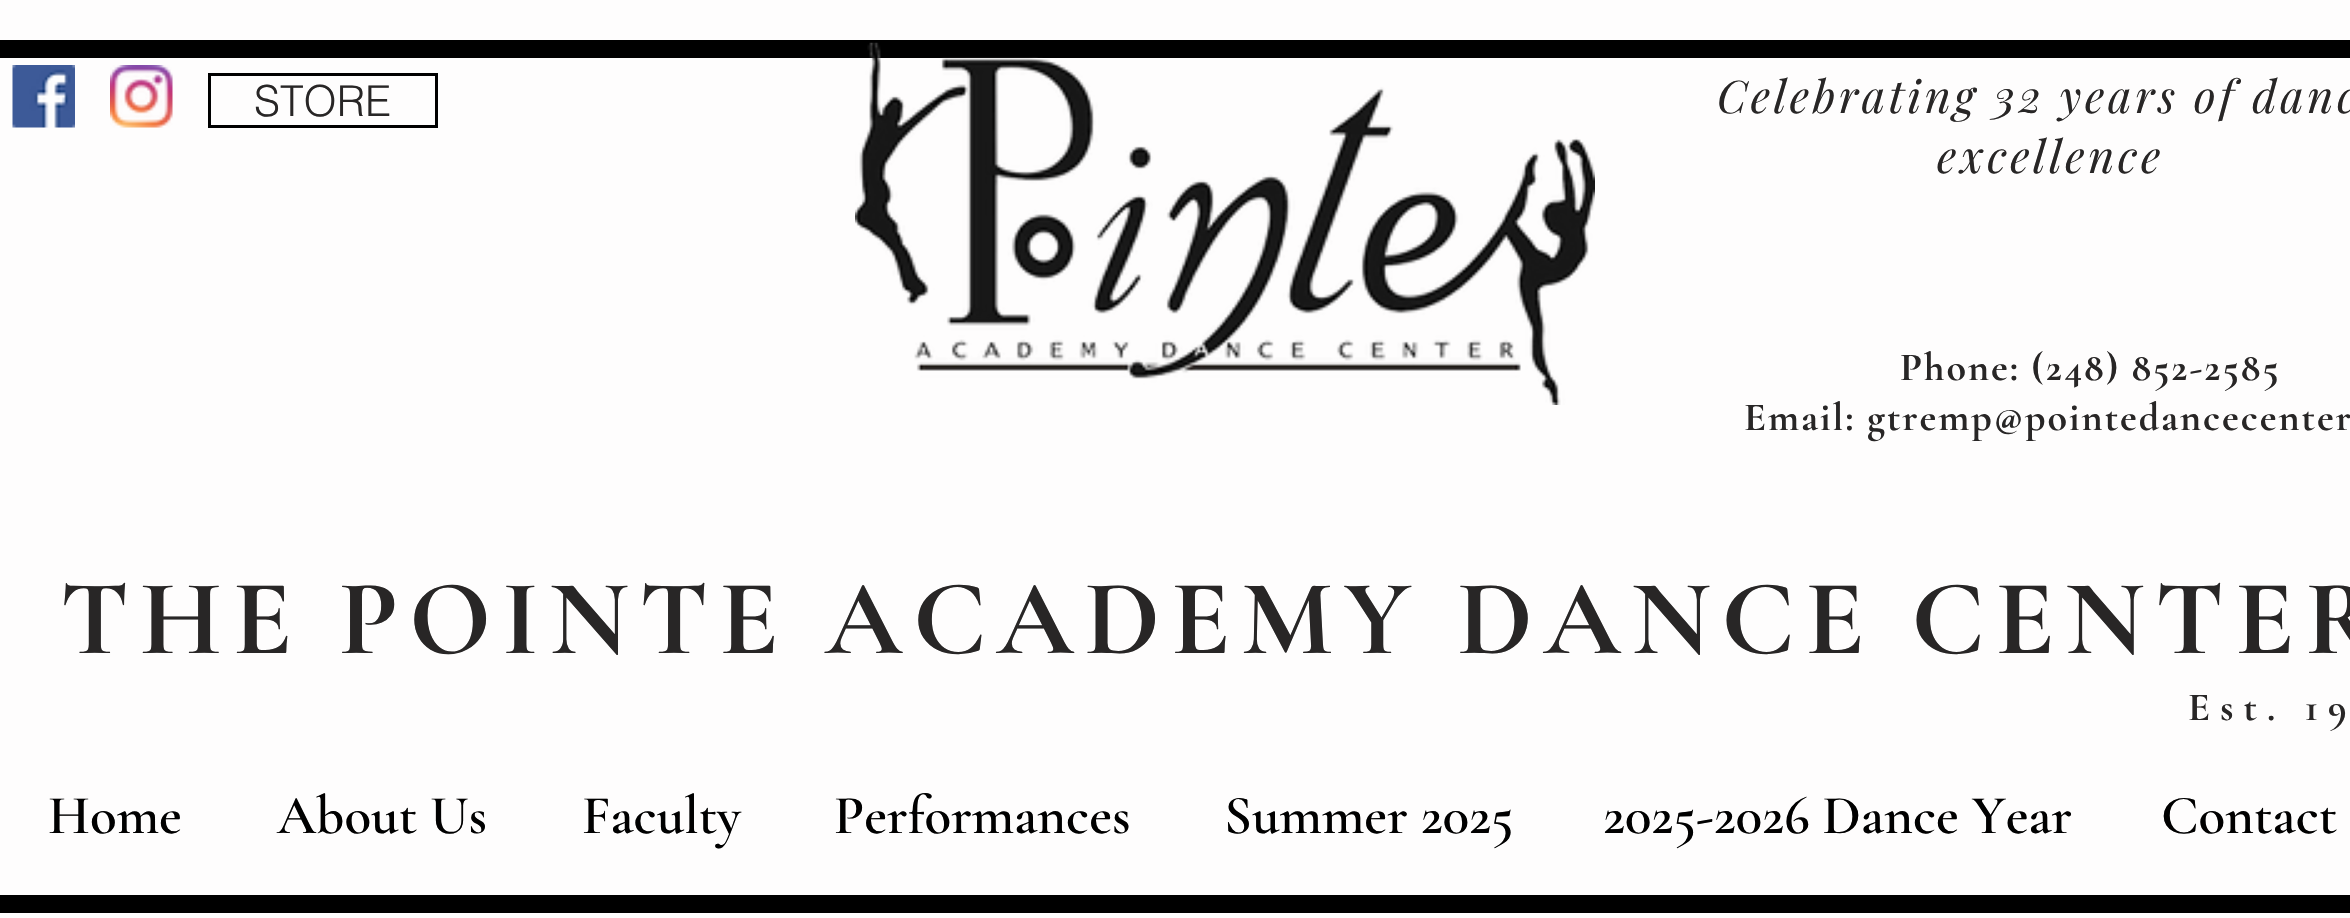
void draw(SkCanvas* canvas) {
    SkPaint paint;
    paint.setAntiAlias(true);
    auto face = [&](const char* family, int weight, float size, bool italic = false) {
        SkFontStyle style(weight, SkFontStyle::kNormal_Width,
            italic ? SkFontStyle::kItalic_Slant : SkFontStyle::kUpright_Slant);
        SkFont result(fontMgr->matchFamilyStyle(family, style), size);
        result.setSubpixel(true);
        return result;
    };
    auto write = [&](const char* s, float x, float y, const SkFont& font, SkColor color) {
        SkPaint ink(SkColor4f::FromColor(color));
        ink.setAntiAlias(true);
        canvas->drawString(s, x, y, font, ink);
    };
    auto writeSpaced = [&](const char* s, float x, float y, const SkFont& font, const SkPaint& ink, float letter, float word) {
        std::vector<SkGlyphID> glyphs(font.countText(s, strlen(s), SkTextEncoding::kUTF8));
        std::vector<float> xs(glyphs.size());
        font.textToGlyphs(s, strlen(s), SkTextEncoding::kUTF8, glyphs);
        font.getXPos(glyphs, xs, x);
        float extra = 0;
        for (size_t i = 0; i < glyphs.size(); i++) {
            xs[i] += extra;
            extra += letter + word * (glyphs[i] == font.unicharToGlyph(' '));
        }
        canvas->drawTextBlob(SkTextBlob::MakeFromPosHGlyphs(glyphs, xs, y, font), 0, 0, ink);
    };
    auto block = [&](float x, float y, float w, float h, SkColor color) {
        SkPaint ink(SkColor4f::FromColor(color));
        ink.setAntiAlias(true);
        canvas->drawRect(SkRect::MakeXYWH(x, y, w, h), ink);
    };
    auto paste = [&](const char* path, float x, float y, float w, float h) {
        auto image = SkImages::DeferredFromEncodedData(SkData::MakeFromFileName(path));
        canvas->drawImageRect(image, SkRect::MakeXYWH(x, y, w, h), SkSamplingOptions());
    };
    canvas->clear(SkColorSetRGB(254, 253, 253));
    block(0, 40, 2350, 18, SK_ColorBLACK);
    block(0, 895, 2350, 18, SK_ColorBLACK);
    paste("pic1.png", 12, 65, 63, 63);
    paste("pic2.png", 110, 65, 63, 63);
    paint.setStyle(SkPaint::kStroke_Style);
    paint.setStrokeWidth(3);
    paint.setColor(SK_ColorBLACK);
    canvas->drawRect(SkRect::MakeXYWH(209.5f, 74.5f, 227, 52), paint);
    auto kFont1 = face("helvetica", 300, 42.5f);
    write("STORE", 254, 116, kFont1, SkColorSetRGB(40, 38, 38));
    paste("pic3.png", 855, 42, 740, 363);
    auto kFont2 = face("Playfair Display", 400, 45, true);
    paint.setStyle(SkPaint::kFill_Style);
    paint.setColor(SkColorSetRGB(40, 38, 38));
    writeSpaced("Celebrating 32 years of danc", 1717, 113, kFont2, paint, 3.6f, 0);
    writeSpaced("excellence", 1937, 173, kFont2, paint, 3.6f, 0);
    auto kFont3 = face("Cormorant Garamond", 700, 40);
    writeSpaced("Phone: (248) 852-2585", 1900, 380, kFont3, paint, 2, 0);
    writeSpaced("Email: gtremp@pointedancecenter", 1744, 430, kFont3, paint, 2, 0);
    auto kFont4 = face("Cormorant Garamond", 700, 107.5f);
    writeSpaced("THE POINTE ACADEMY DANCE CENTER", 60, 653, kFont4, paint, 10.75f, 0);
    writeSpaced("Est. 19", 2188, 720, kFont3, paint, 10, 0);
    auto kFont5 = face("Cormorant Garamond", 600, 55);
    write("Home", 48, 833, kFont5, SK_ColorBLACK);
    write("About Us", 277, 833, kFont5, SK_ColorBLACK);
    write("Faculty", 582, 833, kFont5, SK_ColorBLACK);
    write("Performances", 834, 833, kFont5, SK_ColorBLACK);
    write("Summer 2025", 1224, 833, kFont5, SK_ColorBLACK);
    write("2025-2026 Dance Year", 1603, 833, kFont5, SK_ColorBLACK);
    write("Contact", 2161, 833, kFont5, SK_ColorBLACK);
}
